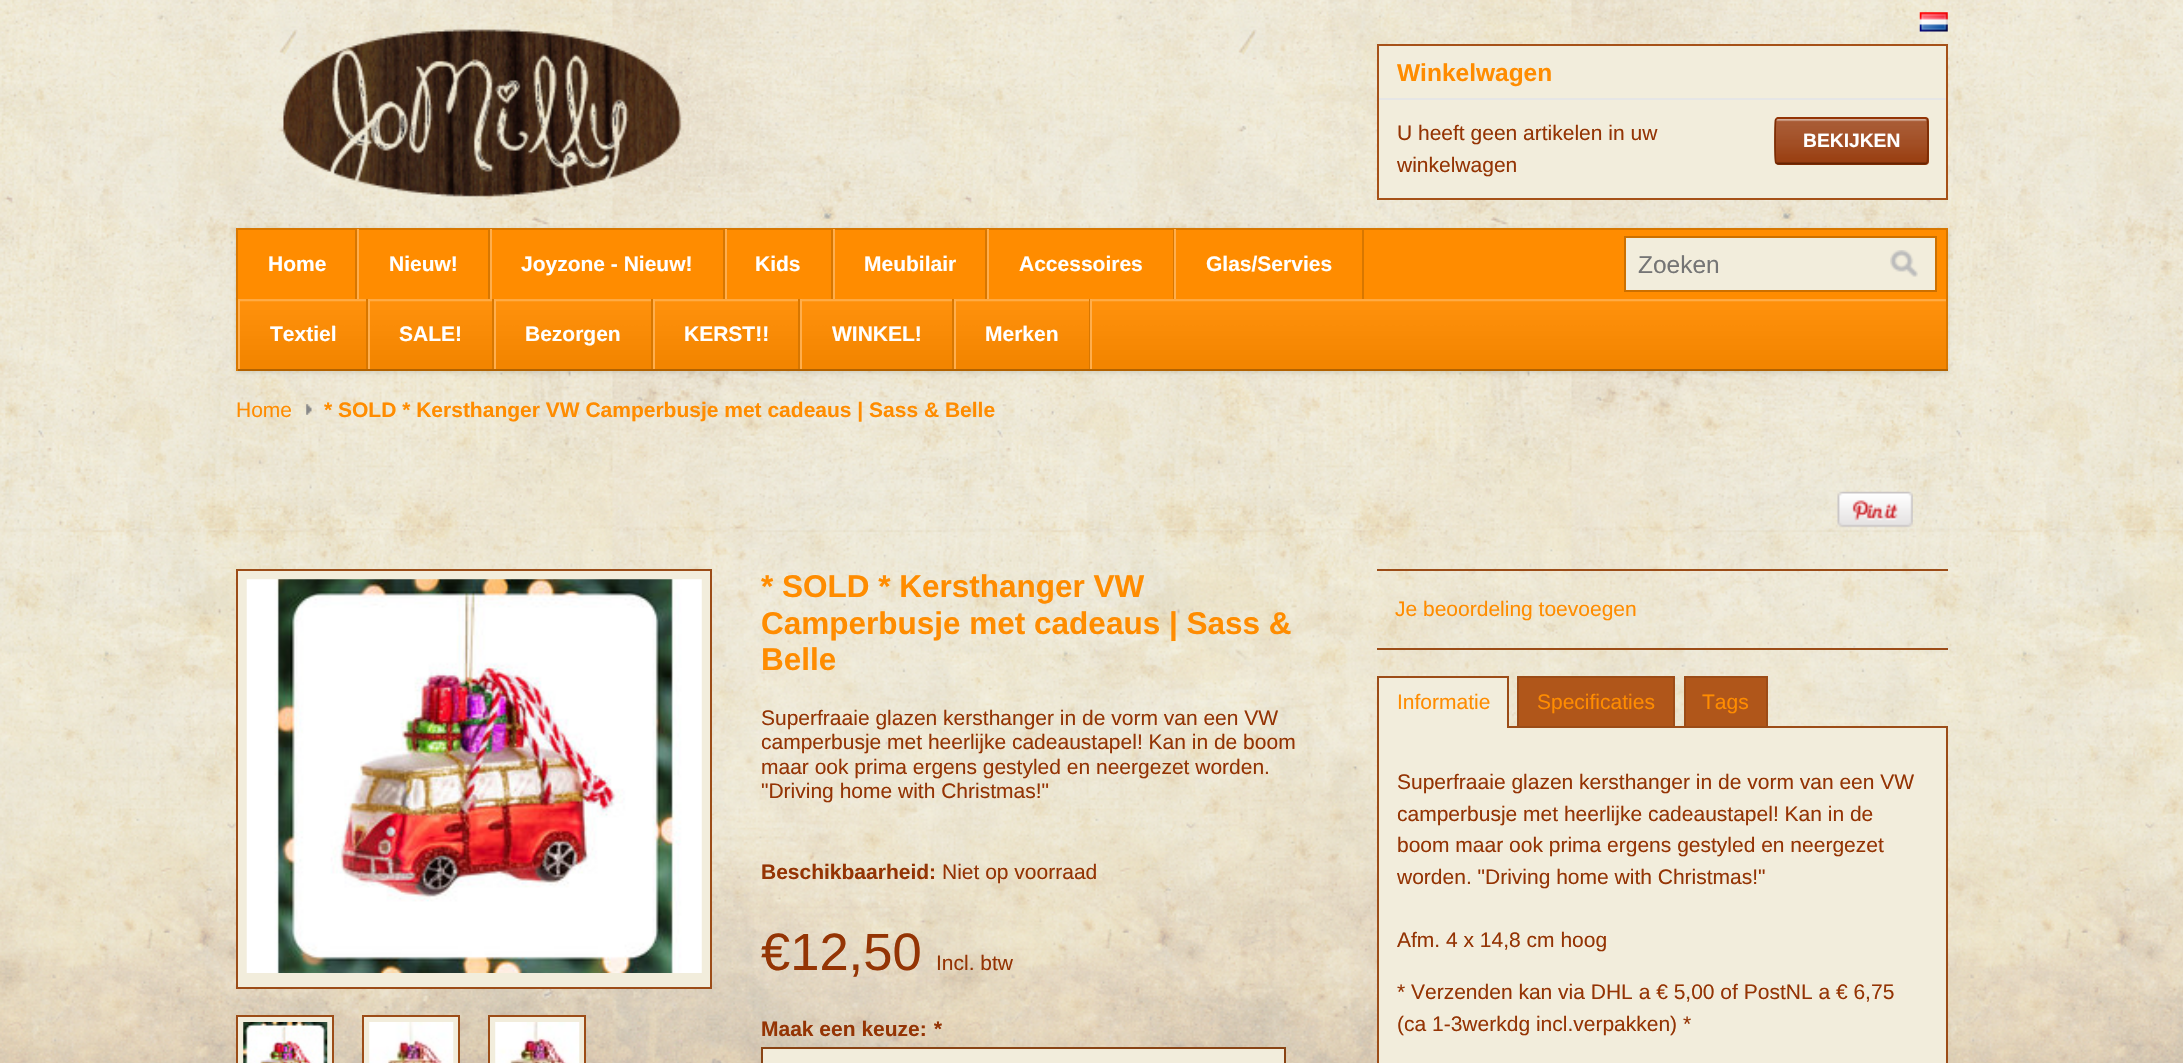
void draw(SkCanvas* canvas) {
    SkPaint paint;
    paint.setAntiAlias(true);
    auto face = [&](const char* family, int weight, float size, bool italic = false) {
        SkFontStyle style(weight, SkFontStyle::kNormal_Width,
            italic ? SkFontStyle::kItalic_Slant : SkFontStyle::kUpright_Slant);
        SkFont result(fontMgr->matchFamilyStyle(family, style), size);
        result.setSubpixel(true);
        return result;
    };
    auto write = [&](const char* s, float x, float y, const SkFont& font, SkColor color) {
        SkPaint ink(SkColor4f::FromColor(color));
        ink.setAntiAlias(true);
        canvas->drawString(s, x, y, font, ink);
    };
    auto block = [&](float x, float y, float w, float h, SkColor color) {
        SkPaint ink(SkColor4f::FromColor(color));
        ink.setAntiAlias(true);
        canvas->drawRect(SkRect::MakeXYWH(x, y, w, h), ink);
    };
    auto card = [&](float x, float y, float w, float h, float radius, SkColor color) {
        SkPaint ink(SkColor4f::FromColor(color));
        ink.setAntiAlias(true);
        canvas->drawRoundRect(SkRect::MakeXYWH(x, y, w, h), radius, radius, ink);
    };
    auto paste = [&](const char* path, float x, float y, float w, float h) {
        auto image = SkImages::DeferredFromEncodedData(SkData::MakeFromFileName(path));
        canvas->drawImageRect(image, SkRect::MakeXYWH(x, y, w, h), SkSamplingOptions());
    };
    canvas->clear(SK_ColorWHITE);
    paste("pic1.png", 0, 0, 2183, 1063);
    paste("pic2.png", 283, 29, 399, 168);
    paste("pic3.png", 1919, 12, 29, 20);
    paint.setColor(SkColorSetRGB(242, 237, 220));
    canvas->drawRect(SkRect::MakeXYWH(1378, 45, 569, 154), paint);
    paint.setStyle(SkPaint::kStroke_Style);
    paint.setStrokeWidth(2);
    paint.setColor(SkColorSetRGB(166, 81, 24));
    canvas->drawRect(SkRect::MakeXYWH(1378, 45, 569, 154), paint);
    block(1379, 98, 567, 2, SkColorSetRGB(230, 230, 230));
    auto kFont1 = face("Liberation Sans", 700, 24.5f);
    write("Winkelwagen", 1397, 81, kFont1, SkColorSetRGB(255, 140, 0));
    auto kFont2 = face("Liberation Sans", 400, 21);
    write("U heeft geen artikelen in uw", 1397, 140, kFont2, SkColorSetRGB(148, 52, 4));
    card(1775, 117, 154, 48, 4, SkColorSetRGB(148, 52, 4));
    paste("pic4.png", 1775, 119, 154, 45);
    paint.setStrokeWidth(1.8f);
    paint.setColor(SkColorSetRGB(148, 52, 4));
    canvas->drawPath(SkPathBuilder().moveTo(1776, 119).lineTo(1778, 118).lineTo(1925, 118).lineTo(1927, 119).detach(), paint);
    paint.setColor(SkColorSetRGB(125, 44, 3));
    canvas->drawPath(SkPathBuilder().moveTo(1927, 119).cubicTo(1928.5f, 120.5f, 1928, 157, 1927.5f, 161.5f).lineTo(1927, 163).detach(), paint);
    paint.setColor(SkColorSetRGB(103, 36, 2));
    canvas->drawPath(SkPathBuilder().moveTo(1927, 163).lineTo(1925, 163.5f).lineTo(1778, 163.5f).lineTo(1776, 163).detach(), paint);
    paint.setColor(SkColorSetRGB(125, 44, 3));
    canvas->drawPath(SkPathBuilder().moveTo(1776, 163).cubicTo(1774.5f, 161.5f, 1775, 124.5f, 1775.5f, 120.5f).lineTo(1776, 119).detach(), paint);
    auto kFont3 = face("Liberation Sans", 700, 19.25f);
    write("BEKIJKEN", 1803, 147, kFont3, SK_ColorWHITE);
    write("winkelwagen", 1397, 172, kFont2, SkColorSetRGB(148, 52, 4));
    paint.setStyle(SkPaint::kFill_Style);
    paint.setColor(SkColorSetARGB(26, 0, 0, 0));
    paint.setMaskFilter(SkMaskFilter::MakeBlur(kNormal_SkBlurStyle, 2));
    canvas->drawRect(SkRect::MakeXYWH(236, 229, 1712, 144), paint);
    paint.setMaskFilter(nullptr);
    block(238, 230, 1708, 139, SkColorSetRGB(255, 140, 0));
    paste("pic5.png", 240, 299, 1706, 70);
    block(236, 228, 1712, 2, SkColorSetRGB(216, 119, 0));
    block(1946, 228, 2, 143, SkColorSetRGB(216, 119, 0));
    block(236, 369, 1712, 2, SkColorSetRGB(178, 98, 0));
    block(236, 228, 2, 143, SkColorSetRGB(216, 119, 0));
    block(355, 229, 2, 70, SkColorSetRGB(216, 119, 0));
    auto kFont4 = face("Liberation Sans", 700, 21);
    write("Home", 268, 271, kFont4, SK_ColorWHITE);
    block(488, 229, 2, 70, SkColorSetRGB(216, 119, 0));
    block(357, 229, 2, 70, SkColorSetRGB(255, 174, 76));
    write("Nieuw!", 389, 271, kFont4, SK_ColorWHITE);
    block(723, 229, 2, 70, SkColorSetRGB(216, 119, 0));
    block(490, 229, 2, 70, SkColorSetRGB(255, 174, 76));
    write("Joyzone - Nieuw!", 521, 271, kFont4, SK_ColorWHITE);
    block(831, 229, 2, 70, SkColorSetRGB(216, 119, 0));
    block(725, 229, 2, 70, SkColorSetRGB(255, 174, 76));
    write("Kids", 755, 271, kFont4, SK_ColorWHITE);
    block(985, 229, 2, 70, SkColorSetRGB(216, 119, 0));
    block(833, 229, 2, 70, SkColorSetRGB(255, 174, 76));
    write("Meubilair", 864, 271, kFont4, SK_ColorWHITE);
    block(1173, 229, 1, 70, SkColorSetRGB(216, 119, 0));
    block(987, 229, 2, 70, SkColorSetRGB(255, 174, 76));
    write("Accessoires", 1019, 271, kFont4, SK_ColorWHITE);
    block(1362, 229, 2, 70, SkColorSetRGB(216, 119, 0));
    block(1174, 229, 2, 70, SkColorSetRGB(255, 174, 76));
    write("Glas/Servies", 1206, 271, kFont4, SK_ColorWHITE);
    block(366, 299, 2, 70, SkColorSetRGB(216, 119, 0));
    block(238, 299, 2, 70, SkColorSetRGB(255, 174, 76));
    write("Textiel", 270, 341, kFont4, SK_ColorWHITE);
    block(492, 299, 2, 70, SkColorSetRGB(216, 119, 0));
    block(368, 299, 2, 70, SkColorSetRGB(255, 174, 76));
    write("SALE!", 399, 341, kFont4, SK_ColorWHITE);
    block(651, 299, 2, 70, SkColorSetRGB(216, 119, 0));
    block(494, 299, 2, 70, SkColorSetRGB(255, 174, 76));
    write("Bezorgen", 525, 341, kFont4, SK_ColorWHITE);
    block(798, 299, 2, 70, SkColorSetRGB(216, 119, 0));
    block(653, 299, 2, 70, SkColorSetRGB(255, 174, 76));
    write("KERST!!", 684, 341, kFont4, SK_ColorWHITE);
    block(952, 299, 2, 70, SkColorSetRGB(216, 119, 0));
    block(800, 299, 2, 70, SkColorSetRGB(255, 174, 76));
    write("WINKEL!", 832, 341, kFont4, SK_ColorWHITE);
    block(1089, 299, 1, 70, SkColorSetRGB(216, 119, 0));
    block(954, 299, 2, 70, SkColorSetRGB(255, 174, 76));
    write("Merken", 985, 341, kFont4, SK_ColorWHITE);
    block(1090, 299, 2, 70, SkColorSetRGB(255, 174, 76));
    paint.setColor(SkColorSetRGB(242, 237, 220));
    canvas->drawRect(SkRect::MakeXYWH(1625, 237, 311, 54), paint);
    paint.setStyle(SkPaint::kStroke_Style);
    paint.setStrokeWidth(2);
    paint.setColor(SkColorSetRGB(204, 112, 0));
    canvas->drawRect(SkRect::MakeXYWH(1625, 237, 311, 54), paint);
    auto kFont5 = face("Liberation Sans", 400, 24.5f);
    write("Zoeken", 1638, 273, kFont5, SkColorSetRGB(117, 117, 117));
    paste("pic6.png", 1890, 250, 28, 27);
    write("Home", 236, 417, kFont2, SkColorSetRGB(255, 140, 0));
    paste("pic7.png", 306, 404, 6, 11);
    write("* SOLD * Kersthanger VW Camperbusje met cadeaus | Sass & Belle", 324, 417, kFont4, SkColorSetRGB(255, 140, 0));
    paste("pic8.png", 1837, 491, 76, 37);
    paint.setStyle(SkPaint::kFill_Style);
    paint.setColor(SkColorSetRGB(242, 237, 220));
    canvas->drawRect(SkRect::MakeXYWH(237, 570, 474, 418), paint);
    paint.setStyle(SkPaint::kStroke_Style);
    paint.setColor(SkColorSetRGB(156, 76, 23));
    canvas->drawRect(SkRect::MakeXYWH(237, 570, 474, 418), paint);
    paste("pic9.png", 246, 579, 456, 394);
    paint.setStyle(SkPaint::kFill_Style);
    paint.setColor(SkColorSetRGB(242, 237, 220));
    canvas->drawRect(SkRect::MakeXYWH(237, 1016, 96, 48), paint);
    paint.setStyle(SkPaint::kStroke_Style);
    paint.setColor(SkColorSetRGB(156, 76, 23));
    canvas->drawRect(SkRect::MakeXYWH(237, 1016, 96, 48), paint);
    paste("pic10.png", 243, 1022, 85, 41);
    paint.setStyle(SkPaint::kFill_Style);
    paint.setColor(SkColorSetRGB(242, 237, 220));
    canvas->drawRect(SkRect::MakeXYWH(363, 1016, 96, 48), paint);
    paint.setStyle(SkPaint::kStroke_Style);
    paint.setColor(SkColorSetRGB(156, 76, 23));
    canvas->drawRect(SkRect::MakeXYWH(363, 1016, 96, 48), paint);
    paste("pic11.png", 369, 1022, 85, 41);
    paint.setStyle(SkPaint::kFill_Style);
    paint.setColor(SkColorSetRGB(242, 237, 220));
    canvas->drawRect(SkRect::MakeXYWH(489, 1016, 96, 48), paint);
    paint.setStyle(SkPaint::kStroke_Style);
    paint.setColor(SkColorSetRGB(156, 76, 23));
    canvas->drawRect(SkRect::MakeXYWH(489, 1016, 96, 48), paint);
    paste("pic12.png", 495, 1022, 85, 41);
    auto kFont6 = face("Liberation Sans", 700, 31.5f);
    write("* SOLD * Kersthanger VW", 761, 597, kFont6, SkColorSetRGB(255, 140, 0));
    write("Camperbusje met cadeaus | Sass &", 761, 634, kFont6, SkColorSetRGB(255, 140, 0));
    write("Belle", 761, 670, kFont6, SkColorSetRGB(255, 140, 0));
    write("Superfraaie glazen kersthanger in de vorm van een VW", 761, 725, kFont2, SkColorSetRGB(148, 52, 4));
    write("camperbusje met heerlijke cadeaustapel! Kan in de boom", 761, 749, kFont2, SkColorSetRGB(148, 52, 4));
    write("maar ook prima ergens gestyled en neergezet worden.", 761, 774, kFont2, SkColorSetRGB(148, 52, 4));
    write("\"Driving home with Christmas!\"", 761, 798, kFont2, SkColorSetRGB(148, 52, 4));
    write("Beschikbaarheid:", 761, 879, kFont4, SkColorSetRGB(148, 52, 4));
    write("Niet op voorraad", 942, 879, kFont2, SkColorSetRGB(148, 52, 4));
    auto kFont7 = face("Liberation Sans", 400, 52.5f);
    write("€12,50", 761, 970, kFont7, SkColorSetRGB(148, 52, 4));
    write("Incl. btw", 936, 970, kFont2, SkColorSetRGB(148, 52, 4));
    write("Maak een keuze:", 761, 1036, kFont4, SkColorSetRGB(148, 52, 4));
    auto kFont8 = face("Liberation Sans", 700, 21, true);
    write("*", 933, 1036, kFont8, SkColorSetRGB(148, 52, 4));
    paint.setStyle(SkPaint::kFill_Style);
    paint.setColor(SkColorSetRGB(242, 237, 220));
    canvas->drawRect(SkRect::MakeXYWH(762, 1048, 523, 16), paint);
    paint.setStyle(SkPaint::kStroke_Style);
    paint.setColor(SkColorSetRGB(137, 67, 20));
    canvas->drawRect(SkRect::MakeXYWH(762, 1048, 523, 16), paint);
    block(1377, 569, 571, 2, SkColorSetRGB(156, 76, 23));
    block(1377, 648, 571, 2, SkColorSetRGB(156, 76, 23));
    write("Je beoordeling toevoegen", 1395, 616, kFont2, SkColorSetRGB(255, 140, 0));
    paint.setStyle(SkPaint::kFill_Style);
    paint.setColor(SkColorSetRGB(242, 237, 220));
    canvas->drawRect(SkRect::MakeXYWH(1378, 727, 569, 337), paint);
    paint.setStyle(SkPaint::kStroke_Style);
    paint.setColor(SkColorSetRGB(156, 76, 23));
    canvas->drawRect(SkRect::MakeXYWH(1378, 727, 569, 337), paint);
    block(1379, 678, 128, 50, SkColorSetRGB(242, 237, 220));
    block(1377, 676, 132, 2, SkColorSetRGB(156, 76, 23));
    block(1507, 676, 2, 52, SkColorSetRGB(156, 76, 23));
    block(1377, 676, 2, 52, SkColorSetRGB(156, 76, 23));
    write("Informatie", 1397, 709, kFont2, SkColorSetRGB(255, 140, 0));
    block(1519, 678, 154, 48, SkColorSetRGB(176, 86, 26));
    block(1517, 676, 158, 2, SkColorSetRGB(156, 76, 23));
    block(1673, 676, 2, 50, SkColorSetRGB(156, 76, 23));
    block(1517, 676, 2, 50, SkColorSetRGB(156, 76, 23));
    write("Specificaties", 1537, 709, kFont2, SkColorSetRGB(255, 140, 0));
    block(1686, 678, 80, 48, SkColorSetRGB(176, 86, 26));
    block(1684, 676, 84, 2, SkColorSetRGB(156, 76, 23));
    block(1766, 676, 2, 50, SkColorSetRGB(156, 76, 23));
    block(1684, 676, 2, 50, SkColorSetRGB(156, 76, 23));
    write("Tags", 1702, 709, kFont2, SkColorSetRGB(255, 140, 0));
    write("Superfraaie glazen kersthanger in de vorm van een VW", 1397, 789, kFont2, SkColorSetRGB(148, 52, 4));
    write("camperbusje met heerlijke cadeaustapel! Kan in de", 1397, 821, kFont2, SkColorSetRGB(148, 52, 4));
    write("boom maar ook prima ergens gestyled en neergezet", 1397, 852, kFont2, SkColorSetRGB(148, 52, 4));
    write("worden. \"Driving home with Christmas!\"", 1397, 884, kFont2, SkColorSetRGB(148, 52, 4));
    write("Afm. 4 x 14,8 cm hoog", 1397, 947, kFont2, SkColorSetRGB(148, 52, 4));
    write("* Verzenden kan via DHL a € 5,00 of PostNL a € 6,75", 1397, 999, kFont2, SkColorSetRGB(148, 52, 4));
    write("(ca 1-3werkdg incl.verpakken) *", 1397, 1031, kFont2, SkColorSetRGB(148, 52, 4));
}
